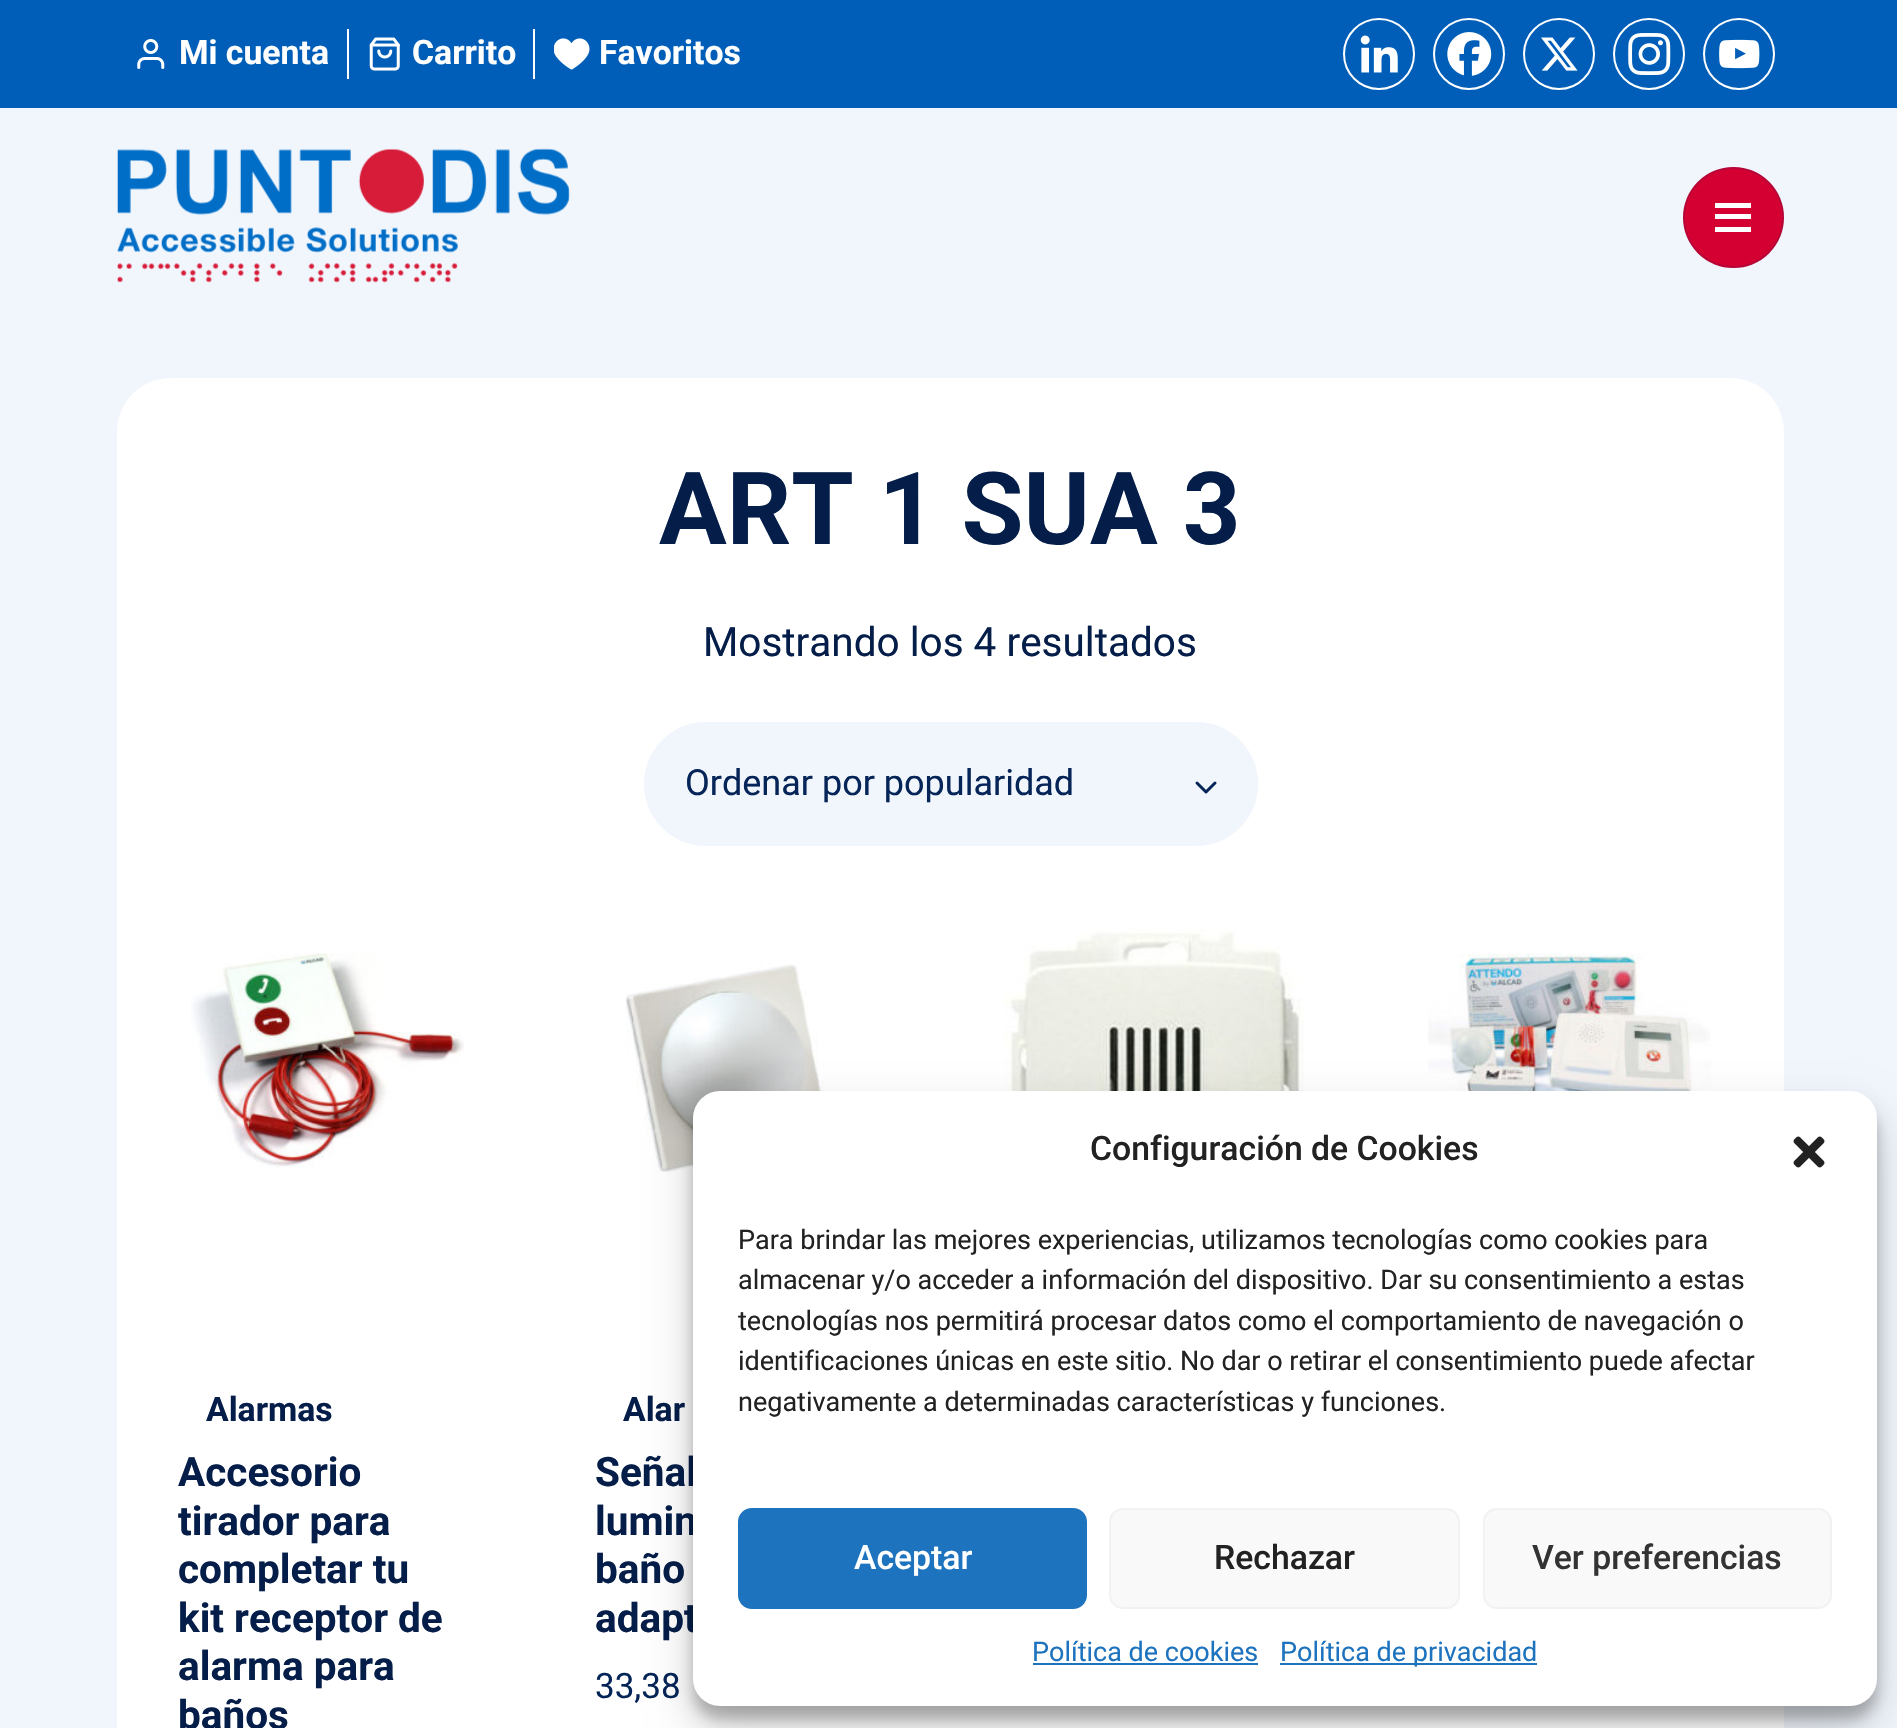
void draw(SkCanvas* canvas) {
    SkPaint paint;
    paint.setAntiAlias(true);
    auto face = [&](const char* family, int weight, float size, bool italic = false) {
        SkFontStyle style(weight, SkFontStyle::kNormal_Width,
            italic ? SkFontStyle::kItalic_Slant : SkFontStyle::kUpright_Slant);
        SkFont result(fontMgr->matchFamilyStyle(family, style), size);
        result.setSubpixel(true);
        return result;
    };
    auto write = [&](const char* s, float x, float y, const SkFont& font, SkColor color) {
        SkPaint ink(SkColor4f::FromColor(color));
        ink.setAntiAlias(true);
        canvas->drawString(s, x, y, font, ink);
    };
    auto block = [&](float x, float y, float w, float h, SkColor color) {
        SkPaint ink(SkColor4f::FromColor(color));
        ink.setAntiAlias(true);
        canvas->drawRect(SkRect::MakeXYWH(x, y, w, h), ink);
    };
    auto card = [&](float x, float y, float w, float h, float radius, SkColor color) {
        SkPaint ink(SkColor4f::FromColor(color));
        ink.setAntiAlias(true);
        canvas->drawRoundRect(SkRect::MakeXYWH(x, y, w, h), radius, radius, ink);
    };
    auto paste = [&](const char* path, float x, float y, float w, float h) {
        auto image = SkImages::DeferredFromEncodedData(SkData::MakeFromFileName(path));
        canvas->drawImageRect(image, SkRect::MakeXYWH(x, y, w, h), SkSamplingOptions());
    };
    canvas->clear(SkColorSetRGB(241, 246, 253));
    block(0, 0, 1897, 108, SkColorSetRGB(0, 94, 184));
    paste("pic1.png", 137, 39, 28, 30);
    auto kFont1 = face("Roboto", 700, 33.75f);
    write("Mi cuenta", 179, 64, kFont1, SK_ColorWHITE);
    block(347, 29, 2, 50, SK_ColorWHITE);
    paste("pic2.png", 369, 37, 31, 34);
    write("Carrito", 412, 64, kFont1, SK_ColorWHITE);
    block(533, 29, 2, 50, SK_ColorWHITE);
    paste("pic3.png", 554, 38, 36, 32);
    write("Favoritos", 599, 64, kFont1, SK_ColorWHITE);
    paint.setStyle(SkPaint::kStroke_Style);
    paint.setStrokeWidth(2);
    paint.setColor(SK_ColorWHITE);
    canvas->drawCircle(1379, 54, 35, paint);
    paste("pic4.png", 1360, 35, 38, 38);
    canvas->drawCircle(1469, 54, 35, paint);
    paste("pic5.png", 1447, 32, 45, 44);
    canvas->drawCircle(1559, 54, 35, paint);
    paste("pic6.png", 1541, 37, 37, 34);
    canvas->drawCircle(1649, 54, 35, paint);
    paste("pic7.png", 1628, 33, 43, 42);
    canvas->drawCircle(1739, 54, 35, paint);
    paste("pic8.png", 1719, 39, 41, 30);
    paste("pic9.png", 117, 148, 453, 135);
    paint.setStyle(SkPaint::kFill_Style);
    paint.setColor(SkColorSetRGB(213, 0, 50));
    canvas->drawCircle(1733.5f, 217.5f, 50.5f, paint);
    paint.setStyle(SkPaint::kStroke_Style);
    paint.setColor(SkColorSetARGB(38, 4, 30, 73));
    canvas->drawCircle(1733.5f, 217.5f, 49.5f, paint);
    block(1715, 214, 36, 5, SK_ColorWHITE);
    block(1715, 203, 36, 5, SK_ColorWHITE);
    block(1715, 227, 36, 5, SK_ColorWHITE);
    card(117, 378, 1667, 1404, 54, SK_ColorWHITE);
    auto kFont2 = face("Roboto", 700, 100.75f);
    write("ART 1 SUA 3", 659, 544, kFont2, SkColorSetRGB(4, 30, 73));
    auto kFont3 = face("Roboto", 400, 40.5f);
    write("Mostrando los 4 resultados", 703, 656, kFont3, SkColorSetRGB(4, 30, 73));
    paint.setStyle(SkPaint::kFill_Style);
    paint.setColor(SkColorSetRGB(241, 246, 253));
    canvas->drawRoundRect(SkRect::MakeXYWH(645, 723, 612, 122), 61, 61, paint);
    paint.setStyle(SkPaint::kStroke_Style);
    canvas->drawRoundRect(SkRect::MakeXYWH(645, 723, 612, 122), 61, 61, paint);
    auto kFont4 = face("Roboto", 400, 36);
    write("Ordenar por popularidad", 685, 795, kFont4, SkColorSetRGB(5, 36, 87));
    paint.setStrokeWidth(3);
    paint.setStrokeCap(SkPaint::kRound_Cap);
    paint.setStrokeJoin(SkPaint::kRound_Join);
    paint.setColor(SkColorSetRGB(5, 36, 87));
    canvas->drawPath(SkPathBuilder().moveTo(1197, 783).lineTo(1206, 792).lineTo(1215, 783).detach(), paint);
    paste("pic10.png", 1004, 929, 301, 162);
    paste("pic11.png", 1428, 953, 283, 138);
    paste("pic12.png", 191, 953, 273, 215);
    write("Alarmas", 206, 1421, kFont1, SkColorSetRGB(4, 30, 73));
    auto kFont5 = face("Roboto", 700, 40.5f);
    write("Accesorio", 178, 1486, kFont5, SkColorSetRGB(4, 30, 73));
    write("tirador para", 178, 1535, kFont5, SkColorSetRGB(4, 30, 73));
    write("completar tu", 178, 1583, kFont5, SkColorSetRGB(4, 30, 73));
    write("kit receptor de", 178, 1632, kFont5, SkColorSetRGB(4, 30, 73));
    write("alarma para", 178, 1680, kFont5, SkColorSetRGB(4, 30, 73));
    write("baños", 178, 1729, kFont5, SkColorSetRGB(4, 30, 73));
    paste("pic13.png", 625, 964, 204, 208);
    write("Alar", 623, 1421, kFont1, SkColorSetRGB(4, 30, 73));
    write("Señal", 595, 1486, kFont5, SkColorSetRGB(4, 30, 73));
    write("lumin", 595, 1535, kFont5, SkColorSetRGB(4, 30, 73));
    write("baño", 595, 1583, kFont5, SkColorSetRGB(4, 30, 73));
    write("adapt", 595, 1632, kFont5, SkColorSetRGB(4, 30, 73));
    auto kFont6 = face("Roboto", 400, 35);
    write("33,38", 595, 1698, kFont6, SkColorSetRGB(5, 36, 87));
    paint.setStyle(SkPaint::kFill_Style);
    paint.setColor(SkColorSetARGB(59, 0, 0, 0));
    paint.setMaskFilter(SkMaskFilter::MakeBlur(kNormal_SkBlurStyle, 7));
    canvas->drawRoundRect(SkRect::MakeXYWH(693, 1105, 1184, 614), 27, 27, paint);
    paint.setMaskFilter(nullptr);
    paint.setColor(SkColorSetARGB(48, 0, 0, 0));
    paint.setMaskFilter(SkMaskFilter::MakeBlur(kNormal_SkBlurStyle, 22.5f));
    canvas->drawRoundRect(SkRect::MakeXYWH(693, 1114, 1184, 614), 27, 27, paint);
    paint.setMaskFilter(nullptr);
    card(693, 1091, 1184, 615, 27, SK_ColorWHITE);
    auto kFont7 = face("Roboto", 500, 33.75f);
    write("Configuración de Cookies", 1090, 1160, kFont7, SkColorSetRGB(34, 34, 34));
    paste("pic14.png", 1793, 1136, 32, 32);
    auto kFont8 = face("Roboto", 400, 27);
    write("Para brindar las mejores experiencias, utilizamos tecnologías como cookies para", 738, 1249, kFont8, SkColorSetRGB(34, 34, 34));
    write("almacenar y/o acceder a información del dispositivo. Dar su consentimiento a estas", 738, 1289, kFont8, SkColorSetRGB(34, 34, 34));
    write("tecnologías nos permitirá procesar datos como el comportamiento de navegación o", 738, 1330, kFont8, SkColorSetRGB(34, 34, 34));
    write("identificaciones únicas en este sitio. No dar o retirar el consentimiento puede afectar", 738, 1370, kFont8, SkColorSetRGB(34, 34, 34));
    write("negativamente a determinadas características y funciones.", 738, 1411, kFont8, SkColorSetRGB(34, 34, 34));
    paint.setColor(SkColorSetRGB(30, 115, 190));
    canvas->drawRoundRect(SkRect::MakeXYWH(739, 1509, 347, 99), 13, 13, paint);
    paint.setStyle(SkPaint::kStroke_Style);
    paint.setStrokeWidth(2);
    paint.setStrokeCap(SkPaint::kButt_Cap);
    paint.setStrokeJoin(SkPaint::kMiter_Join);
    canvas->drawRoundRect(SkRect::MakeXYWH(739, 1509, 347, 99), 13, 13, paint);
    write("Aceptar", 854, 1569, kFont7, SK_ColorWHITE);
    paint.setStyle(SkPaint::kFill_Style);
    paint.setColor(SkColorSetRGB(249, 249, 249));
    canvas->drawRoundRect(SkRect::MakeXYWH(1110, 1509, 349, 99), 13, 13, paint);
    paint.setStyle(SkPaint::kStroke_Style);
    paint.setColor(SkColorSetRGB(242, 242, 242));
    canvas->drawRoundRect(SkRect::MakeXYWH(1110, 1509, 349, 99), 13, 13, paint);
    write("Rechazar", 1214, 1569, kFont7, SkColorSetRGB(34, 34, 34));
    paint.setStyle(SkPaint::kFill_Style);
    paint.setColor(SkColorSetRGB(249, 249, 249));
    canvas->drawRoundRect(SkRect::MakeXYWH(1484, 1509, 347, 99), 13, 13, paint);
    paint.setStyle(SkPaint::kStroke_Style);
    paint.setColor(SkColorSetRGB(242, 242, 242));
    canvas->drawRoundRect(SkRect::MakeXYWH(1484, 1509, 347, 99), 13, 13, paint);
    write("Ver preferencias", 1532, 1569, kFont7, SkColorSetRGB(51, 51, 51));
    write("Política de cookies", 1032, 1661, kFont8, SkColorSetRGB(30, 115, 190));
    block(1033, 1663, 225, 2, SkColorSetRGB(30, 115, 190));
    block(1280, 1663, 257, 2, SkColorSetRGB(30, 115, 190));
    write("Política de privacidad", 1280, 1661, kFont8, SkColorSetRGB(30, 115, 190));
}
